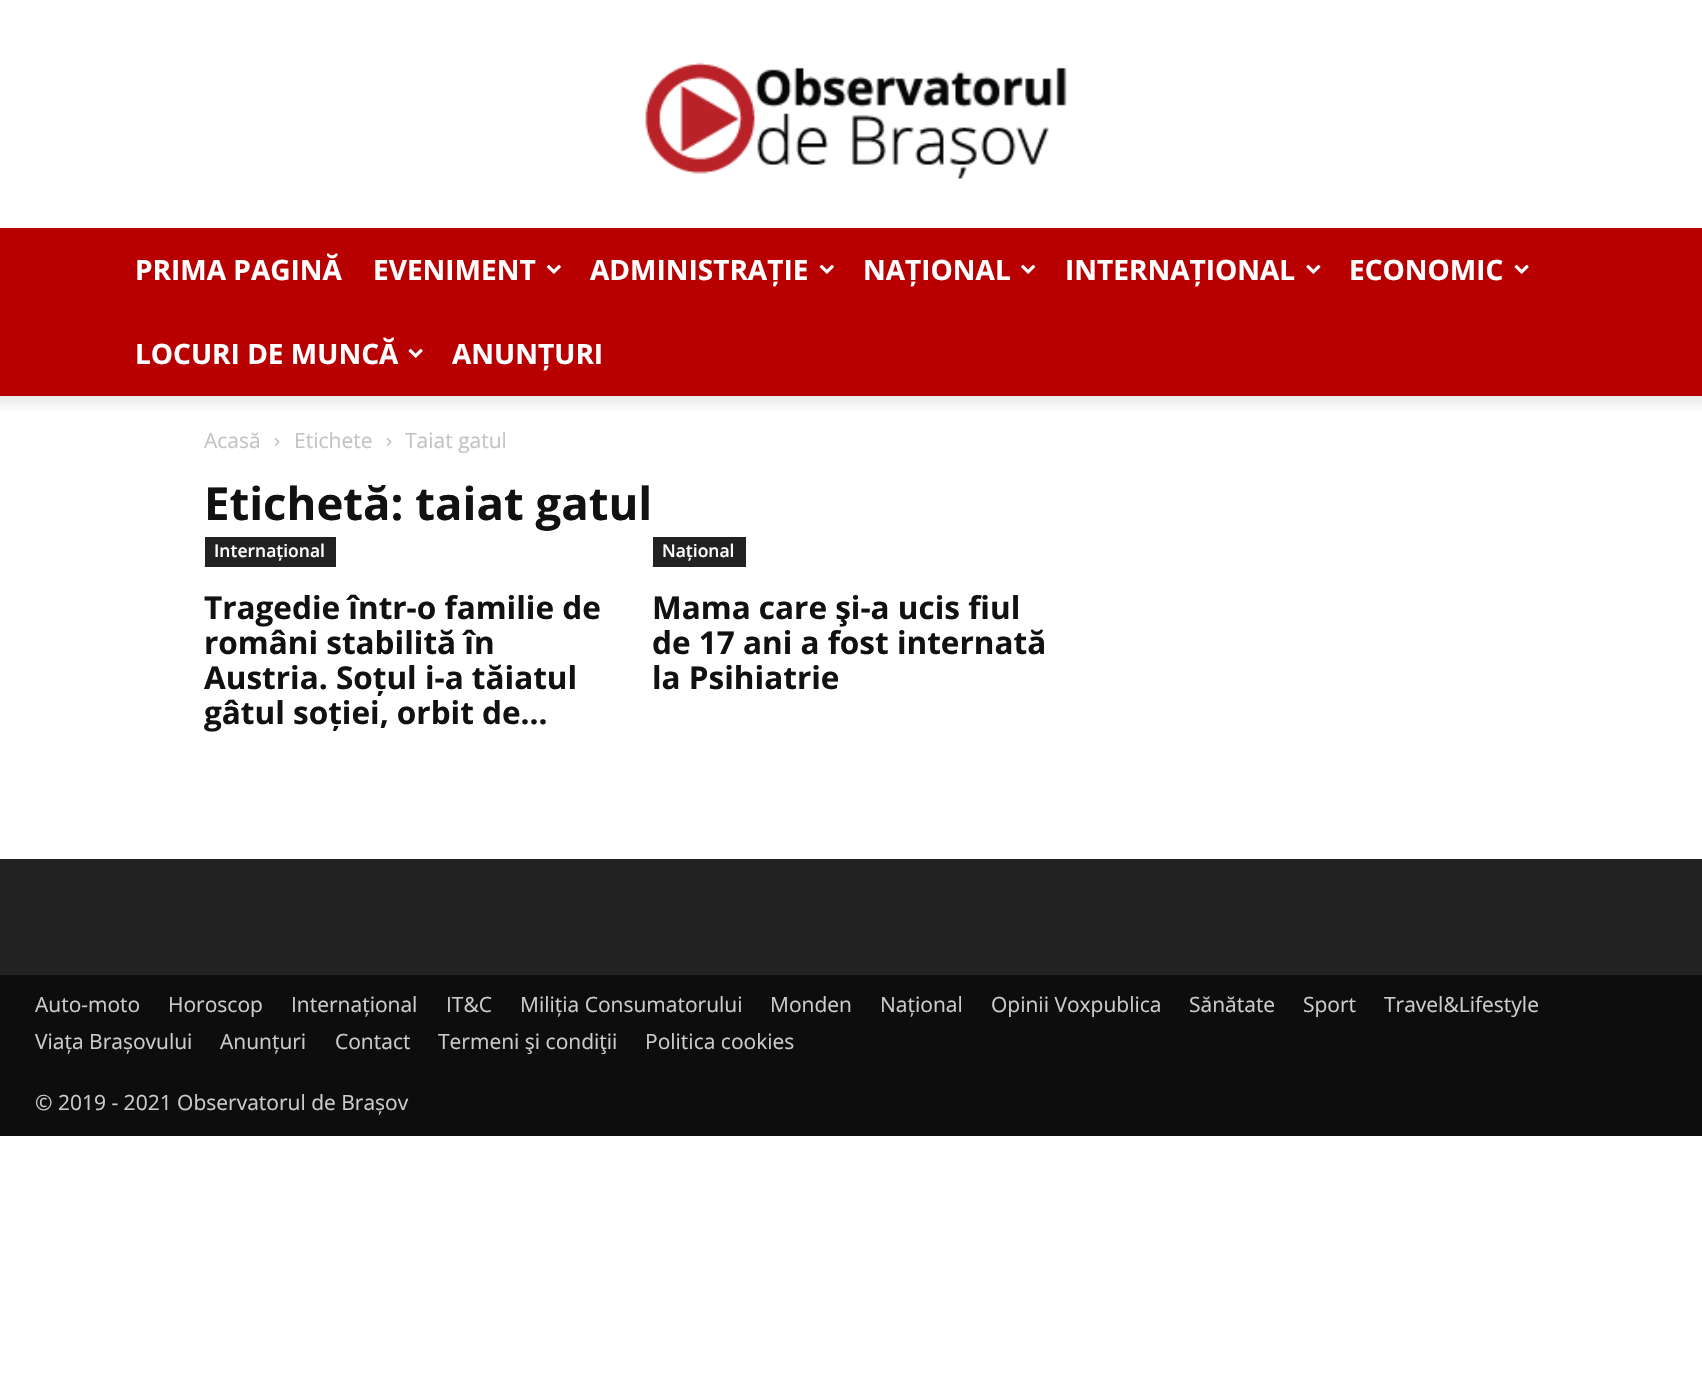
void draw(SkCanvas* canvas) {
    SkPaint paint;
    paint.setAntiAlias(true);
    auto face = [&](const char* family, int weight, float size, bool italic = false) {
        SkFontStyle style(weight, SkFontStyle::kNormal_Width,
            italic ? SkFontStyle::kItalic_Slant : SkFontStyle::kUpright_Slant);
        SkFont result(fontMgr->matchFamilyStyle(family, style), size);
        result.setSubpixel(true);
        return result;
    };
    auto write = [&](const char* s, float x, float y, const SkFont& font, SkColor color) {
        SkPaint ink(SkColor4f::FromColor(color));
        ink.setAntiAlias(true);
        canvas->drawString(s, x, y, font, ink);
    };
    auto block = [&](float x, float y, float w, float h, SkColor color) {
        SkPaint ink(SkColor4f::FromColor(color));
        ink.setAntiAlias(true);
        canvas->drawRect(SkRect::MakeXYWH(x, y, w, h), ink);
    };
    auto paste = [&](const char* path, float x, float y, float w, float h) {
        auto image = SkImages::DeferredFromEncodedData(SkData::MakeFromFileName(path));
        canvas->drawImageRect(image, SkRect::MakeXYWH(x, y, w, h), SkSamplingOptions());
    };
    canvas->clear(SK_ColorWHITE);
    paste("pic1.png", 645, 62, 422, 117);
    block(0, 228, 1702, 168, SkColorSetRGB(185, 0, 0));
    auto kFont1 = face("Open Sans", 700, 28);
    write("PRIMA PAGINĂ", 135, 280, kFont1, SK_ColorWHITE);
    write("EVENIMENT", 373, 280, kFont1, SK_ColorWHITE);
    paste("pic2.png", 546, 264, 15, 10);
    write("ADMINISTRAȚIE", 590, 280, kFont1, SK_ColorWHITE);
    paste("pic2.png", 819, 264, 15, 10);
    write("NAȚIONAL", 863, 280, kFont1, SK_ColorWHITE);
    paste("pic3.png", 1021, 264, 15, 10);
    write("INTERNAȚIONAL", 1065, 280, kFont1, SK_ColorWHITE);
    paste("pic4.png", 1306, 264, 15, 10);
    write("ECONOMIC", 1349, 280, kFont1, SK_ColorWHITE);
    paste("pic5.png", 1514, 264, 15, 10);
    write("LOCURI DE MUNCĂ", 135, 364, kFont1, SK_ColorWHITE);
    paste("pic5.png", 408, 348, 15, 10);
    write("ANUNȚURI", 452, 364, kFont1, SK_ColorWHITE);
    paste("pic6.png", 0, 395, 1702, 15);
    auto kFont2 = face("Open Sans", 400, 21);
    write("Acasă", 204, 448, kFont2, SkColorSetRGB(195, 195, 195));
    paste("pic7.png", 274, 438, 6, 8);
    write("Etichete", 294, 448, kFont2, SkColorSetRGB(195, 195, 195));
    paste("pic7.png", 386, 438, 6, 8);
    write("Taiat gatul", 405, 448, kFont2, SkColorSetRGB(195, 195, 195));
    auto kFont3 = face("Open Sans", 700, 45.5f);
    write("Etichetă: taiat gatul", 204, 520, kFont3, SkColorSetRGB(17, 17, 17));
    block(205, 537, 131, 30, SkColorSetRGB(34, 34, 34));
    auto kFont4 = face("Open Sans", 600, 17.5f);
    write("Internațional", 214, 557, kFont4, SK_ColorWHITE);
    paste("pic8.png", 204, 565, 1, 2);
    auto kFont5 = face("Open Sans", 700, 31.5f);
    write("Tragedie într-o familie de", 204, 619, kFont5, SkColorSetRGB(17, 17, 17));
    write("români stabilită în", 204, 654, kFont5, SkColorSetRGB(17, 17, 17));
    write("Austria. Soțul i-a tăiatul", 204, 689, kFont5, SkColorSetRGB(17, 17, 17));
    write("gâtul soției, orbit de...", 204, 724, kFont5, SkColorSetRGB(17, 17, 17));
    block(653, 537, 93, 30, SkColorSetRGB(34, 34, 34));
    write("Național", 662, 557, kFont4, SK_ColorWHITE);
    paste("pic9.png", 652, 565, 1, 2);
    write("Mama care şi-a ucis fiul", 652, 619, kFont5, SkColorSetRGB(17, 17, 17));
    write("de 17 ani a fost internată", 652, 654, kFont5, SkColorSetRGB(17, 17, 17));
    write("la Psihiatrie", 652, 689, kFont5, SkColorSetRGB(17, 17, 17));
    block(0, 859, 1702, 116, SkColorSetRGB(34, 34, 34));
    block(0, 975, 1702, 161, SkColorSetRGB(13, 13, 13));
    write("Auto-moto", 35, 1012, kFont2, SkColorSetRGB(204, 204, 204));
    write("Horoscop", 168, 1012, kFont2, SkColorSetRGB(204, 204, 204));
    write("Internațional", 291, 1012, kFont2, SkColorSetRGB(204, 204, 204));
    write("IT&C", 446, 1012, kFont2, SkColorSetRGB(204, 204, 204));
    write("Miliția Consumatorului", 520, 1012, kFont2, SkColorSetRGB(204, 204, 204));
    write("Monden", 770, 1012, kFont2, SkColorSetRGB(204, 204, 204));
    write("Național", 880, 1012, kFont2, SkColorSetRGB(204, 204, 204));
    write("Opinii Voxpublica", 991, 1012, kFont2, SkColorSetRGB(204, 204, 204));
    write("Sănătate", 1189, 1012, kFont2, SkColorSetRGB(204, 204, 204));
    write("Sport", 1303, 1012, kFont2, SkColorSetRGB(204, 204, 204));
    write("Travel&Lifestyle", 1384, 1012, kFont2, SkColorSetRGB(204, 204, 204));
    write("Viața Brașovului", 35, 1049, kFont2, SkColorSetRGB(204, 204, 204));
    write("Anunțuri", 220, 1049, kFont2, SkColorSetRGB(204, 204, 204));
    write("Contact", 335, 1049, kFont2, SkColorSetRGB(204, 204, 204));
    write("Termeni şi condiţii", 438, 1049, kFont2, SkColorSetRGB(204, 204, 204));
    write("Politica cookies", 645, 1049, kFont2, SkColorSetRGB(204, 204, 204));
    write("© 2019 - 2021 Observatorul de Brașov", 35, 1110, kFont2, SkColorSetRGB(204, 204, 204));
}
